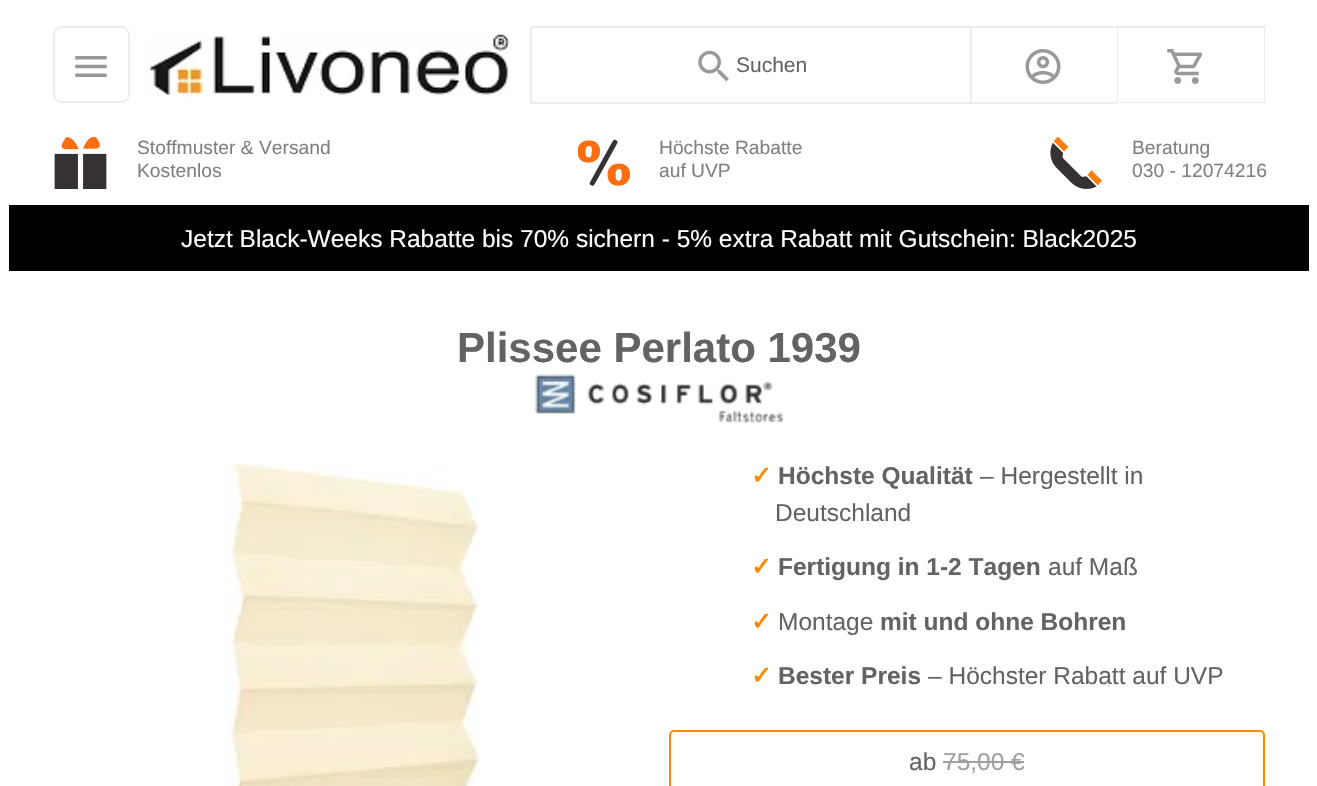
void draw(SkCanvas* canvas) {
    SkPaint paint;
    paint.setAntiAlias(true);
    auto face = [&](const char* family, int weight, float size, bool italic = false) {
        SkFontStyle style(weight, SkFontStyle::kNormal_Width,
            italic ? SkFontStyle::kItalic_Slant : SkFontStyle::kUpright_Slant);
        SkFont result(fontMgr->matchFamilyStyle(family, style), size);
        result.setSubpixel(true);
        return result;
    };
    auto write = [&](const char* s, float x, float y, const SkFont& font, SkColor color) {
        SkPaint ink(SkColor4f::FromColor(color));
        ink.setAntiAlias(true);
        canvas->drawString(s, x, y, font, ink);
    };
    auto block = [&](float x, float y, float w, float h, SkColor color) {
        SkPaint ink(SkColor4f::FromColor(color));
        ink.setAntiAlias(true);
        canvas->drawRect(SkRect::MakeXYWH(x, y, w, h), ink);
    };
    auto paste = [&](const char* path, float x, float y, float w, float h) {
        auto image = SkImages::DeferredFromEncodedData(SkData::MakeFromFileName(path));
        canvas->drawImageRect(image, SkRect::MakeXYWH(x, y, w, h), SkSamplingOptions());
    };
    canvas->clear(SK_ColorWHITE);
    paint.setStyle(SkPaint::kStroke_Style);
    paint.setStrokeWidth(2);
    paint.setColor(SkColorSetRGB(237, 237, 237));
    canvas->drawRoundRect(SkRect::MakeXYWH(54, 27, 75, 75), 8, 8, paint);
    paste("pic1.png", 75, 56, 32, 21);
    paste("pic2.png", 147, 34, 364, 64);
    block(530, 26, 587, 2, SkColorSetRGB(237, 237, 237));
    block(530, 102, 587, 2, SkColorSetRGB(237, 237, 237));
    block(530, 26, 2, 77, SkColorSetRGB(237, 237, 237));
    paste("pic3.png", 698, 50, 31, 32);
    auto kFont1 = face("Liberation Sans", 400, 21);
    write("Suchen", 736, 72, kFont1, SkColorSetRGB(99, 99, 99));
    block(970, 26, 2, 77, SkColorSetRGB(237, 237, 237));
    paste("pic4.png", 1025, 49, 36, 35);
    canvas->drawRect(SkRect::MakeXYWH(1118, 27, 146, 75), paint);
    block(1118, 28, 146, 74, SK_ColorWHITE);
    paste("pic5.png", 1167, 49, 36, 35);
    paste("pic6.png", 54, 137, 53, 52);
    auto kFont2 = face("Liberation Sans", 400, 19.25f);
    write("Stoffmuster & Versand", 137, 154, kFont2, SkColorSetRGB(128, 128, 128));
    write("Kostenlos", 137, 177, kFont2, SkColorSetRGB(128, 128, 128));
    paste("pic7.png", 578, 139, 52, 47);
    write("Höchste Rabatte", 659, 154, kFont2, SkColorSetRGB(128, 128, 128));
    write("auf UVP", 659, 177, kFont2, SkColorSetRGB(128, 128, 128));
    paste("pic8.png", 1050, 137, 52, 52);
    write("Beratung", 1132, 154, kFont2, SkColorSetRGB(128, 128, 128));
    write("030 - 12074216", 1132, 177, kFont2, SkColorSetRGB(128, 128, 128));
    block(9, 205, 1300, 66, SK_ColorBLACK);
    auto kFont3 = face("Liberation Sans", 400, 24.5f);
    write("Jetzt Black-Weeks Rabatte bis 70% sichern - 5% extra Rabatt mit Gutschein: Black2025", 181, 247, kFont3, SK_ColorWHITE);
    auto kFont4 = face("Liberation Sans", 700, 42);
    write("Plissee Perlato 1939", 457, 362, kFont4, SkColorSetRGB(99, 99, 99));
    paste("pic9.png", 535, 374, 249, 50);
    paste("pic10.png", 227, 463, 253, 323);
    auto kFont5 = face("DejaVu Sans", 700, 24.5f);
    write("✓", 751, 484, kFont5, SkColorSetRGB(255, 136, 1));
    auto kFont6 = face("Liberation Sans", 700, 24.5f);
    write("Höchste Qualität", 778, 484, kFont6, SkColorSetRGB(99, 99, 99));
    write("– Hergestellt in", 980, 484, kFont3, SkColorSetRGB(99, 99, 99));
    write("Deutschland", 775, 521, kFont3, SkColorSetRGB(99, 99, 99));
    write("✓", 751, 575, kFont5, SkColorSetRGB(255, 136, 1));
    write("Fertigung in 1-2 Tagen", 778, 575, kFont6, SkColorSetRGB(99, 99, 99));
    write("auf Maß", 1048, 575, kFont3, SkColorSetRGB(99, 99, 99));
    write("✓", 751, 630, kFont5, SkColorSetRGB(255, 136, 1));
    write("Montage", 778, 630, kFont3, SkColorSetRGB(99, 99, 99));
    write("mit und ohne Bohren", 880, 630, kFont6, SkColorSetRGB(99, 99, 99));
    write("✓", 751, 684, kFont5, SkColorSetRGB(255, 136, 1));
    write("Bester Preis", 778, 684, kFont6, SkColorSetRGB(99, 99, 99));
    write("– Höchster Rabatt auf UVP", 928, 684, kFont3, SkColorSetRGB(99, 99, 99));
    paint.setColor(SkColorSetRGB(255, 136, 1));
    canvas->drawRoundRect(SkRect::MakeXYWH(670, 731, 594, 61), 4, 4, paint);
    write("ab", 909, 770, kFont3, SkColorSetRGB(99, 99, 99));
    write("75,00 €", 943, 770, kFont3, SkColorSetRGB(160, 160, 160));
    block(943, 761, 81, 2, SkColorSetRGB(160, 160, 160));
}
